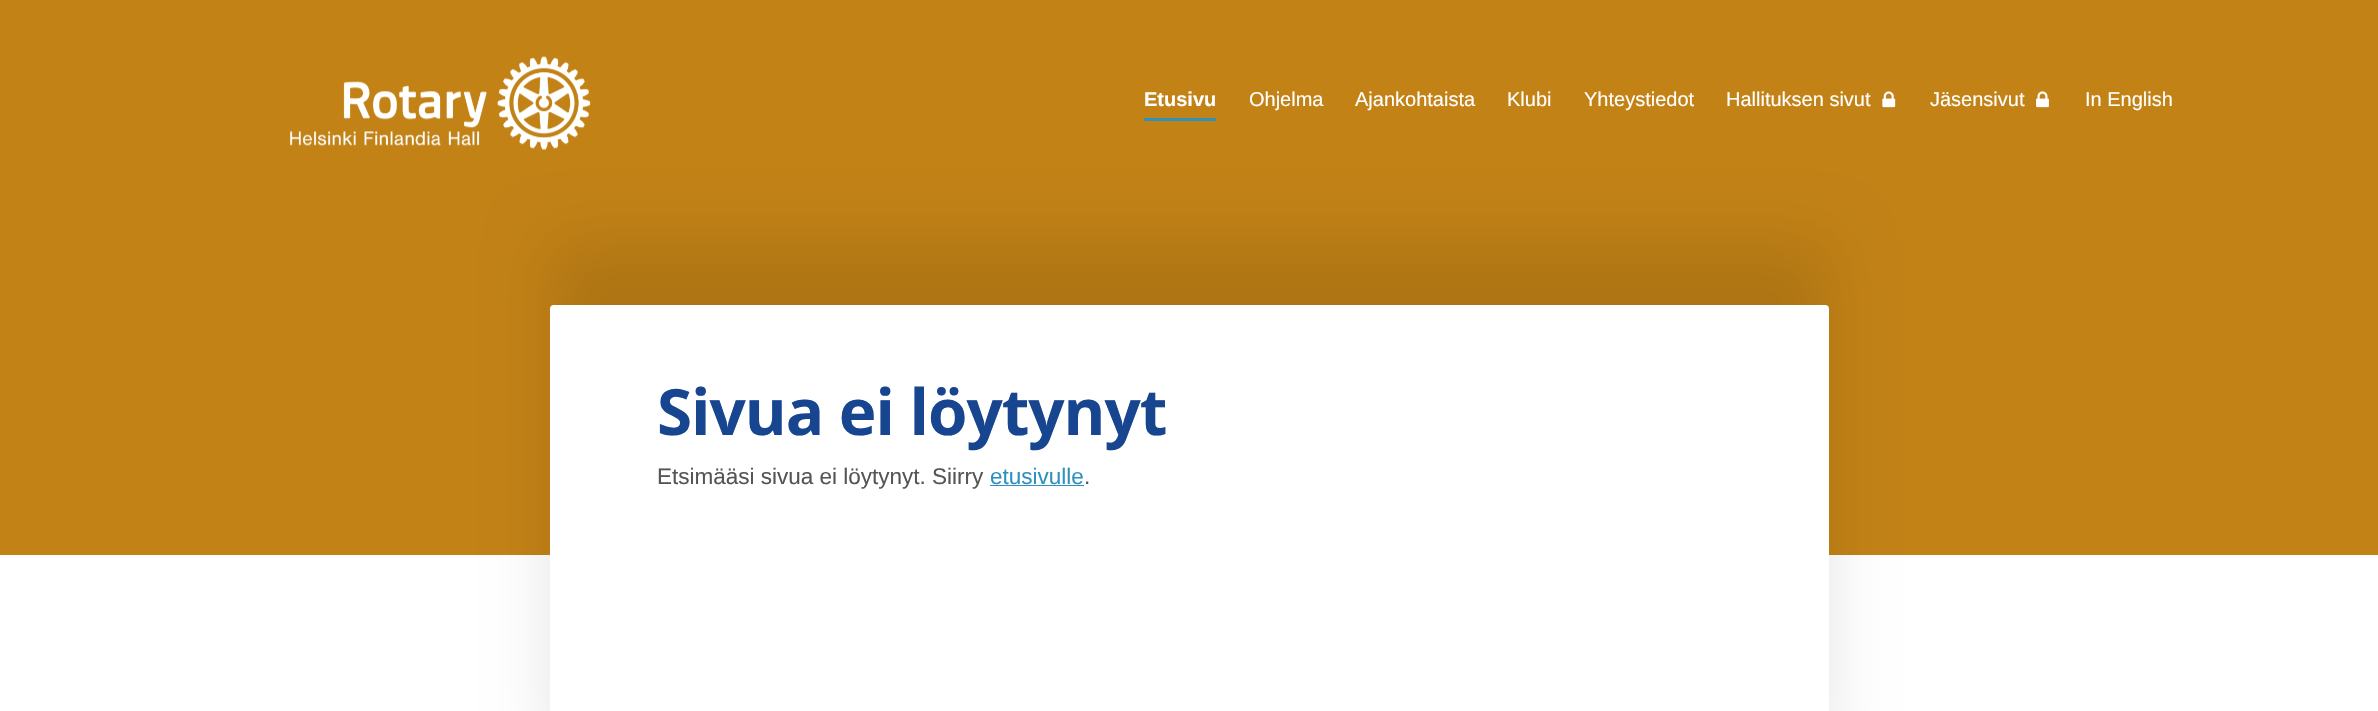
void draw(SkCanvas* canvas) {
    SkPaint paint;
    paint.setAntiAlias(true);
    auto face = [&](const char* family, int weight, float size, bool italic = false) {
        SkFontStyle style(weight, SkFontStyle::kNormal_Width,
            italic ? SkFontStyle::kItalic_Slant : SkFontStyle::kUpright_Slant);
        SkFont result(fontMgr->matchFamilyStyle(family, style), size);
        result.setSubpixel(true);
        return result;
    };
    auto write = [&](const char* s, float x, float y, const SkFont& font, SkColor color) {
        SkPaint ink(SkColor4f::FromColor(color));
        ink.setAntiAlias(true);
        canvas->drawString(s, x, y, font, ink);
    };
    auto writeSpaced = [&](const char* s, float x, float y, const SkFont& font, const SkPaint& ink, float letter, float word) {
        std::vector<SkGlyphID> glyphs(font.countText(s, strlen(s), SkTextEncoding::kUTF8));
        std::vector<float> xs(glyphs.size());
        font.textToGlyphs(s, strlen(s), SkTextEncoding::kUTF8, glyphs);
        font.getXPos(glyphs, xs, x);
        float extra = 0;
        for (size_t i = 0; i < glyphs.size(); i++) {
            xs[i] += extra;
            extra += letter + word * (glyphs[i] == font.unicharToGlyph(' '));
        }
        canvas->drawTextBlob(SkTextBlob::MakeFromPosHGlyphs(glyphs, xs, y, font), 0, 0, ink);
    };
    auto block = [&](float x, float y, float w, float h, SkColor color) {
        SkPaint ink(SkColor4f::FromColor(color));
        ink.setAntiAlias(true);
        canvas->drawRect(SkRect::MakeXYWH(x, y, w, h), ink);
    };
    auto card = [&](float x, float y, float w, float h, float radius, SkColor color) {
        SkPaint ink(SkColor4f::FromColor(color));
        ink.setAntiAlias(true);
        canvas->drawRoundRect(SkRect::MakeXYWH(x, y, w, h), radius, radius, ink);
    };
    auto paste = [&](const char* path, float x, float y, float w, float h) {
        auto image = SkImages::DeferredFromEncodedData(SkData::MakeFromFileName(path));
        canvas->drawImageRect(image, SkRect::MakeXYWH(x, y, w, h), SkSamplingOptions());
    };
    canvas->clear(SK_ColorWHITE);
    block(0, 0, 2378, 555, SkColorSetRGB(194, 130, 22));
    paste("pic1.png", 290, 56, 301, 95);
    auto kFont1 = face("Liberation Sans", 700, 20);
    write("Etusivu", 1144, 106, kFont1, SK_ColorWHITE);
    block(1144, 118, 72, 3, SkColorSetRGB(47, 145, 190));
    auto kFont2 = face("Liberation Sans", 400, 20);
    write("Ohjelma", 1249, 106, kFont2, SK_ColorWHITE);
    write("Ajankohtaista", 1355, 106, kFont2, SK_ColorWHITE);
    write("Klubi", 1507, 106, kFont2, SK_ColorWHITE);
    write("Yhteystiedot", 1584, 106, kFont2, SK_ColorWHITE);
    write("Hallituksen sivut", 1726, 106, kFont2, SK_ColorWHITE);
    paste("pic2.png", 1882, 91, 14, 17);
    write("Jäsensivut", 1930, 106, kFont2, SK_ColorWHITE);
    paste("pic3.png", 2036, 91, 13, 17);
    write("In English", 2085, 106, kFont2, SK_ColorWHITE);
    paint.setColor(SkColorSetARGB(26, 0, 0, 0));
    paint.setMaskFilter(SkMaskFilter::MakeBlur(kNormal_SkBlurStyle, 31));
    canvas->drawRoundRect(SkRect::MakeXYWH(550, 243, 1279, 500), 4, 4, paint);
    paint.setMaskFilter(nullptr);
    card(550, 305, 1279, 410, 4, SK_ColorWHITE);
    auto kFont3 = face("Open Sans", 700, 63.75f);
    paint.setColor(SkColorSetRGB(23, 69, 143));
    writeSpaced("Sivua ei löytynyt", 657, 435, kFont3, paint, -1, 0);
    auto kFont4 = face("Liberation Sans", 400, 22.5f);
    write("Etsimääsi sivua ei löytynyt. Siirry", 657, 484, kFont4, SkColorSetRGB(85, 85, 85));
    write("etusivulle", 990, 484, kFont4, SkColorSetRGB(47, 145, 190));
    block(990, 485, 94, 1, SkColorSetRGB(47, 145, 190));
    write(".", 1084, 484, kFont4, SkColorSetRGB(85, 85, 85));
}
